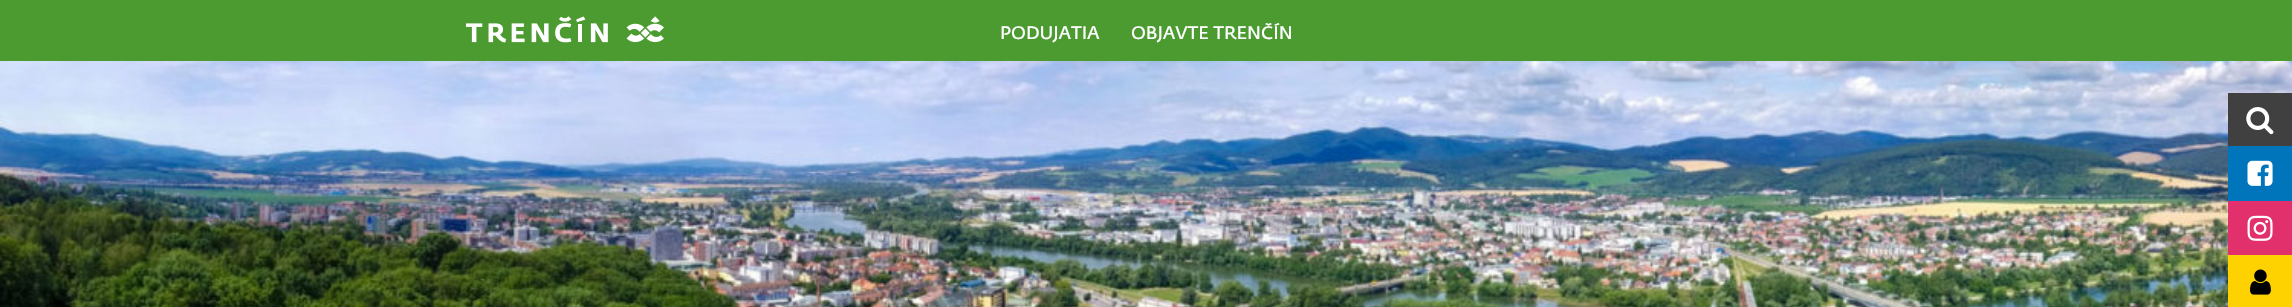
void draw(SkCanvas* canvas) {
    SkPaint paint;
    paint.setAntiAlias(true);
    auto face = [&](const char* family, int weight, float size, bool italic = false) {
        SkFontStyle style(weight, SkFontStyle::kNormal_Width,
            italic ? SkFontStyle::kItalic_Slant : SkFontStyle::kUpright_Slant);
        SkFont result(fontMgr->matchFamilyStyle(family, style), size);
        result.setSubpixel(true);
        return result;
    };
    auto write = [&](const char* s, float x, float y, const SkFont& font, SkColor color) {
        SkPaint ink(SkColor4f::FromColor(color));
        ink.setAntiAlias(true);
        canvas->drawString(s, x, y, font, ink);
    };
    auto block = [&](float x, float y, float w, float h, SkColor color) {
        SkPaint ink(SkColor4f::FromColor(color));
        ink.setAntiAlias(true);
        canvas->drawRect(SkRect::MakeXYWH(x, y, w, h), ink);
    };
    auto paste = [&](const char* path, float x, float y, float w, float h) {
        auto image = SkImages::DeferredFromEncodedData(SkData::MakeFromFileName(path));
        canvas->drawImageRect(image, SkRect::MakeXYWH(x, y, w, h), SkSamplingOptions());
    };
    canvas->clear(SK_ColorWHITE);
    block(0, 0, 2292, 61, SkColorSetRGB(76, 155, 49));
    paste("pic1.png", 466, 16, 198, 27);
    auto kFont1 = face("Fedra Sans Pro", 400, 17.9f);
    write("PODUJATIA", 1000, 39, kFont1, SK_ColorWHITE);
    write("OBJAVTE TRENČÍN", 1131, 39, kFont1, SK_ColorWHITE);
    paste("pic2.png", 0, 61, 2292, 246);
    block(2228, 93, 64, 53, SkColorSetRGB(64, 64, 64));
    paste("pic3.png", 2246, 107, 28, 28);
    block(2228, 146, 64, 55, SkColorSetRGB(0, 117, 187));
    paste("pic4.png", 2247, 160, 26, 26);
    block(2228, 201, 64, 54, SkColorSetRGB(225, 48, 108));
    paste("pic5.png", 2247, 215, 26, 26);
    block(2228, 255, 64, 52, SkColorSetRGB(254, 209, 0));
    paste("pic6.png", 2250, 269, 21, 26);
}
